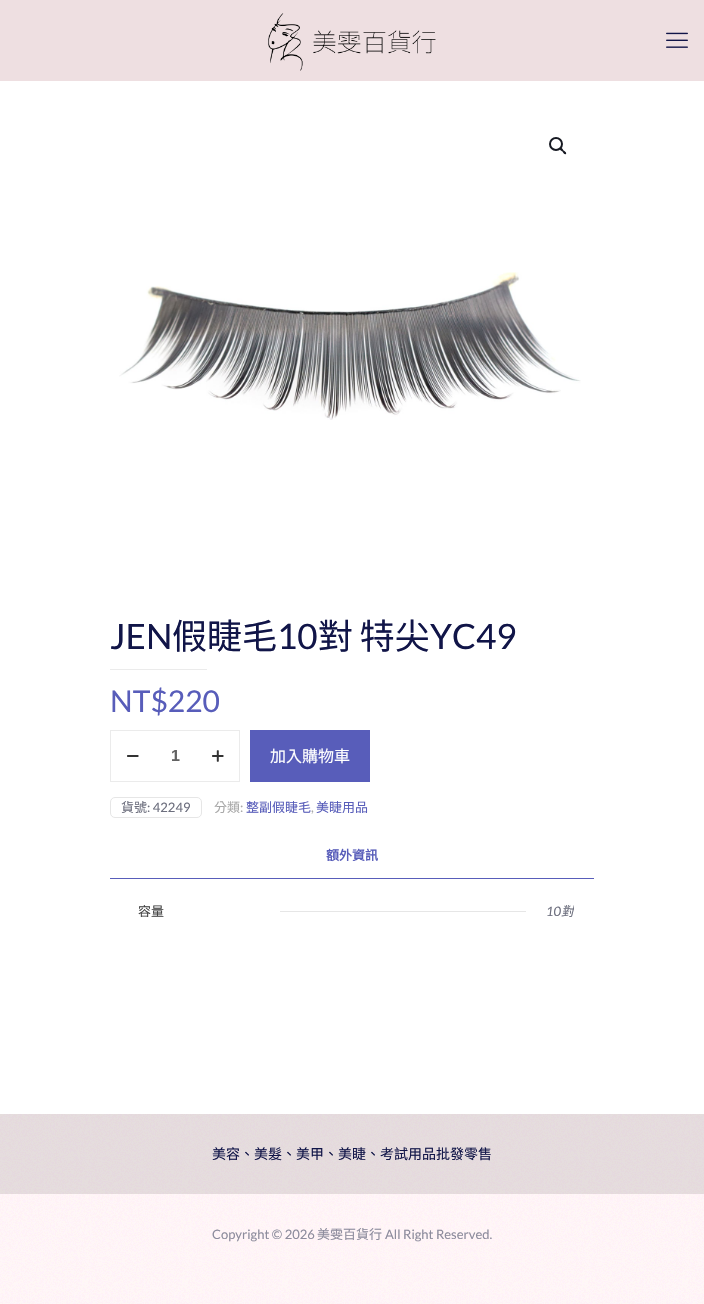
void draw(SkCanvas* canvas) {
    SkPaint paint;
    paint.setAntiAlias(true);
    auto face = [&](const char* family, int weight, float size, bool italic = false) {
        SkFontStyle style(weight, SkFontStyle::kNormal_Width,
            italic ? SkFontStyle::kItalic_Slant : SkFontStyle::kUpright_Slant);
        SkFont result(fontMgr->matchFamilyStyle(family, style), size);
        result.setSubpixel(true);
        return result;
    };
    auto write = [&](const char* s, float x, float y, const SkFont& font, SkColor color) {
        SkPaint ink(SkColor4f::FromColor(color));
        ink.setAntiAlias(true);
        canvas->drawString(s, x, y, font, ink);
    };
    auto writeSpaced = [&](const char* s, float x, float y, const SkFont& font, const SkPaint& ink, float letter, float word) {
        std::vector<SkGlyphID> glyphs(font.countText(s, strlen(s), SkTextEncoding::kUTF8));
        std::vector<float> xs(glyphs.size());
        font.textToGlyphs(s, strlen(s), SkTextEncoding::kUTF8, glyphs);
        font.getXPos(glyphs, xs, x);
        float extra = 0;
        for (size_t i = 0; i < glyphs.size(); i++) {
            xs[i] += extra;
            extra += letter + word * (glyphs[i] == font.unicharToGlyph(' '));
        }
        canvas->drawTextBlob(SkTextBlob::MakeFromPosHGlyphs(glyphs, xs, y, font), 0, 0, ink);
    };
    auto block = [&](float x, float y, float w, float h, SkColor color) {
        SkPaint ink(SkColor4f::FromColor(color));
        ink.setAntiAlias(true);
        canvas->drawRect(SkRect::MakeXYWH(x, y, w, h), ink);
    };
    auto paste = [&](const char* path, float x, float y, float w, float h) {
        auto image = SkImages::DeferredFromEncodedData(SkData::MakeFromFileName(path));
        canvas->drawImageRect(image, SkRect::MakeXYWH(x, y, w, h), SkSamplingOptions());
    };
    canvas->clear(SK_ColorWHITE);
    block(0, 0, 704, 81, SkColorSetRGB(238, 223, 225));
    paste("pic1.png", 268, 13, 168, 58);
    paste("pic2.png", 666, 32, 22, 16);
    paint.setStyle(SkPaint::kStroke_Style);
    paint.setStrokeWidth(2);
    paint.setColor(SkColorSetRGB(22, 25, 34));
    canvas->drawCircle(556, 144, 6, paint);
    paint.setStyle(SkPaint::kFill_Style);
    canvas->drawPath(SkPathBuilder().moveTo(560, 148).cubicTo(561.5f, 147, 563, 149.5f, 563.5f, 150.5f).cubicTo(564.5f, 151, 567, 152.5f, 566, 154).cubicTo(564.5f, 155, 563, 152.5f, 562.5f, 151.5f).cubicTo(561.5f, 151, 559, 149.5f, 560, 148).close().detach(), paint);
    paste("pic3.png", 119, 272, 462, 148);
    auto kFont1 = face("Lato", 400, 35);
    write("JEN", 110, 649, kFont1, SkColorSetRGB(17, 21, 72));
    auto kFont2 = face("Noto Sans CJK TC", 400, 35);
    write("假睫毛", 172, 649, kFont2, SkColorSetRGB(17, 21, 72));
    write("10", 277, 649, kFont1, SkColorSetRGB(17, 21, 72));
    paint.setColor(SkColorSetRGB(17, 21, 72));
    writeSpaced("對 特尖", 318, 649, kFont2, paint, 0, -1);
    write("YC49", 430, 649, kFont1, SkColorSetRGB(17, 21, 72));
    block(110, 669, 97, 1, SkColorSetRGB(235, 235, 235));
    auto kFont3 = face("Lato", 400, 30);
    write("NT$220", 110, 712, kFont3, SkColorSetRGB(88, 93, 186));
    paint.setStyle(SkPaint::kStroke_Style);
    paint.setStrokeWidth(1);
    paint.setColor(SkColorSetRGB(235, 235, 235));
    canvas->drawRect(SkRect::MakeXYWH(110.5f, 730.5f, 129, 51), paint);
    paste("pic4.png", 127, 755, 12, 2);
    auto kFont4 = face("Liberation Sans", 700, 16);
    write("1", 171, 761, kFont4, SkColorSetRGB(98, 98, 98));
    paste("pic5.png", 212, 750, 12, 12);
    block(250, 730, 120, 52, SkColorSetRGB(88, 93, 186));
    auto kFont5 = face("Noto Sans CJK TC", 400, 16);
    write("加入購物車", 270, 762, kFont5, SK_ColorWHITE);
    paint.setColor(SkColorSetRGB(230, 230, 230));
    canvas->drawRoundRect(SkRect::MakeXYWH(110.5f, 797.5f, 91, 20), 4.5f, 4.5f, paint);
    auto kFont6 = face("Noto Sans CJK TC", 400, 13);
    write("貨號", 121, 812, kFont6, SkColorSetRGB(109, 111, 126));
    auto kFont7 = face("Lato", 400, 13);
    write(": 42249", 147, 812, kFont7, SkColorSetRGB(109, 111, 126));
    write("分類", 214, 812, kFont6, SkColorSetRGB(168, 168, 168));
    write(":", 240, 812, kFont7, SkColorSetRGB(168, 168, 168));
    write("整副假睫毛", 246, 812, kFont6, SkColorSetRGB(88, 93, 186));
    write(",", 311, 812, kFont7, SkColorSetRGB(168, 168, 168));
    write("美睫用品", 316, 812, kFont6, SkColorSetRGB(88, 93, 186));
    auto kFont8 = face("Noto Sans CJK TC", 700, 13);
    write("額外資訊", 326, 860, kFont8, SkColorSetRGB(88, 93, 186));
    block(110, 878, 484, 1, SkColorSetRGB(88, 93, 186));
    write("容量", 138, 916, kFont6, SkColorSetRGB(68, 68, 68));
    block(280, 911, 246, 1, SkColorSetRGB(230, 230, 230));
    auto kFont9 = face("Lato", 400, 13, true);
    write("10", 546, 916, kFont9, SkColorSetRGB(109, 111, 126));
    canvas->save();
    canvas->clipRect(SkRect::MakeXYWH(280, 894, 294, 35));
    auto kFont10 = face("Noto Sans CJK TC", 400, 13, true);
    write("對", 561, 916, kFont10, SkColorSetRGB(109, 111, 126));
    canvas->restore();
    paste("pic6.png", 0, 1114, 704, 190);
    block(0, 1114, 704, 80, SkColorSetARGB(26, 0, 0, 0));
    auto kFont11 = face("Noto Sans CJK TC", 400, 14);
    write("美容、美髮、美甲、美睫、考試用品批發零售", 212, 1159, kFont11, SkColorSetRGB(17, 21, 72));
    write("Copyright © 2026", 212, 1239, kFont7, SkColorSetRGB(141, 140, 157));
    write("美雯百貨行", 317, 1239, kFont6, SkColorSetRGB(141, 140, 157));
    write("All Right Reserved.", 385, 1239, kFont7, SkColorSetRGB(141, 140, 157));
}
